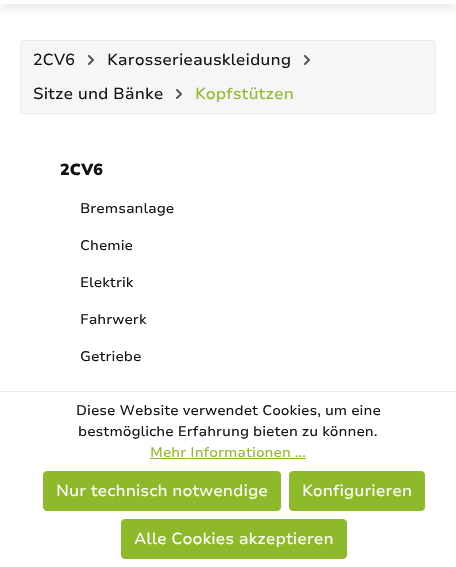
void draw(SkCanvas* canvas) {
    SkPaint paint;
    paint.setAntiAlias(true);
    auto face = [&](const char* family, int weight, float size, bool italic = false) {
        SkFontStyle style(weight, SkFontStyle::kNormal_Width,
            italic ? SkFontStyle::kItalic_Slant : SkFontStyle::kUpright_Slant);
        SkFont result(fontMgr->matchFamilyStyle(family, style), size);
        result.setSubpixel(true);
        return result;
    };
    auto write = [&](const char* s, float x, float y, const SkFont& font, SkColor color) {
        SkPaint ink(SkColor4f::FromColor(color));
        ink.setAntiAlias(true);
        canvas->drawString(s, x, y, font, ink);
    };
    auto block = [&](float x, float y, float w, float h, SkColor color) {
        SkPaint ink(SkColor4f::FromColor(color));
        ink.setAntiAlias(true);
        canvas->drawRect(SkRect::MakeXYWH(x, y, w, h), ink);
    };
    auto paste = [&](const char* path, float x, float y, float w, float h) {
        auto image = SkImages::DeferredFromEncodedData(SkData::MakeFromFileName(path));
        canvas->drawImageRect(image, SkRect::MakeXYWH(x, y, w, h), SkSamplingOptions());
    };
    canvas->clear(SK_ColorWHITE);
    canvas->save();
    canvas->clipRect(SkRect::MakeXYWH(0, 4, 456, 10));
    paint.setColor(SkColorSetARGB(26, 41, 42, 49));
    paint.setMaskFilter(SkMaskFilter::MakeBlur(kNormal_SkBlurStyle, 6));
    canvas->drawRect(SkRect::MakeXYWH(0, -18, 456, 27), paint);
    paint.setMaskFilter(nullptr);
    canvas->restore();
    paint.setColor(SkColorSetRGB(246, 246, 246));
    canvas->drawRoundRect(SkRect::MakeXYWH(20.5f, 40.5f, 415, 73), 3.5f, 3.5f, paint);
    paint.setStyle(SkPaint::kStroke_Style);
    paint.setStrokeWidth(1);
    paint.setColor(SkColorSetRGB(236, 236, 231));
    canvas->drawRoundRect(SkRect::MakeXYWH(20.5f, 40.5f, 415, 73), 3.5f, 3.5f, paint);
    auto kFont1 = face("Nunito Sans", 400, 16);
    write("2CV6", 33, 65, kFont1, SkColorSetRGB(19, 19, 19));
    paste("pic1.png", 88, 55, 6, 10);
    write("Karosserieauskleidung", 107, 65, kFont1, SkColorSetRGB(19, 19, 19));
    paste("pic1.png", 304, 55, 6, 10);
    write("Sitze und Bänke", 33, 99, kFont1, SkColorSetRGB(19, 19, 19));
    paste("pic1.png", 176, 89, 6, 10);
    write("Kopfstützen", 195, 99, kFont1, SkColorSetRGB(142, 185, 42));
    auto kFont2 = face("Nunito Sans", 900, 16);
    write("2CV6", 60, 175, kFont2, SkColorSetRGB(19, 19, 19));
    auto kFont3 = face("Nunito Sans", 400, 14);
    write("Bremsanlage", 80, 213, kFont3, SkColorSetRGB(19, 19, 19));
    write("Chemie", 80, 250, kFont3, SkColorSetRGB(19, 19, 19));
    write("Elektrik", 80, 287, kFont3, SkColorSetRGB(19, 19, 19));
    write("Fahrwerk", 80, 324, kFont3, SkColorSetRGB(19, 19, 19));
    write("Getriebe", 80, 361, kFont3, SkColorSetRGB(19, 19, 19));
    block(0, 391, 456, 1, SkColorSetRGB(236, 236, 231));
    write("Diese Website verwendet Cookies, um eine", 76, 415, kFont3, SkColorSetRGB(19, 19, 19));
    write("bestmögliche Erfahrung bieten zu können.", 78, 436, kFont3, SkColorSetRGB(19, 19, 19));
    write("Mehr Informationen ...", 150, 457, kFont3, SkColorSetRGB(142, 185, 42));
    block(150, 458, 156, 1, SkColorSetRGB(142, 185, 42));
    paint.setStyle(SkPaint::kFill_Style);
    paint.setColor(SkColorSetRGB(142, 185, 42));
    canvas->drawRoundRect(SkRect::MakeXYWH(43.5f, 471.5f, 237, 39), 3.5f, 3.5f, paint);
    paint.setStyle(SkPaint::kStroke_Style);
    canvas->drawRoundRect(SkRect::MakeXYWH(43.5f, 471.5f, 237, 39), 3.5f, 3.5f, paint);
    write("Nur technisch notwendige", 56, 496, kFont1, SK_ColorWHITE);
    paint.setStyle(SkPaint::kFill_Style);
    canvas->drawRoundRect(SkRect::MakeXYWH(289.5f, 471.5f, 135, 39), 3.5f, 3.5f, paint);
    paint.setStyle(SkPaint::kStroke_Style);
    canvas->drawRoundRect(SkRect::MakeXYWH(289.5f, 471.5f, 135, 39), 3.5f, 3.5f, paint);
    write("Konfigurieren", 302, 496, kFont1, SK_ColorWHITE);
    paint.setStyle(SkPaint::kFill_Style);
    canvas->drawRoundRect(SkRect::MakeXYWH(121.5f, 519.5f, 225, 39), 3.5f, 3.5f, paint);
    paint.setStyle(SkPaint::kStroke_Style);
    canvas->drawRoundRect(SkRect::MakeXYWH(121.5f, 519.5f, 225, 39), 3.5f, 3.5f, paint);
    write("Alle Cookies akzeptieren", 134, 544, kFont1, SK_ColorWHITE);
}
